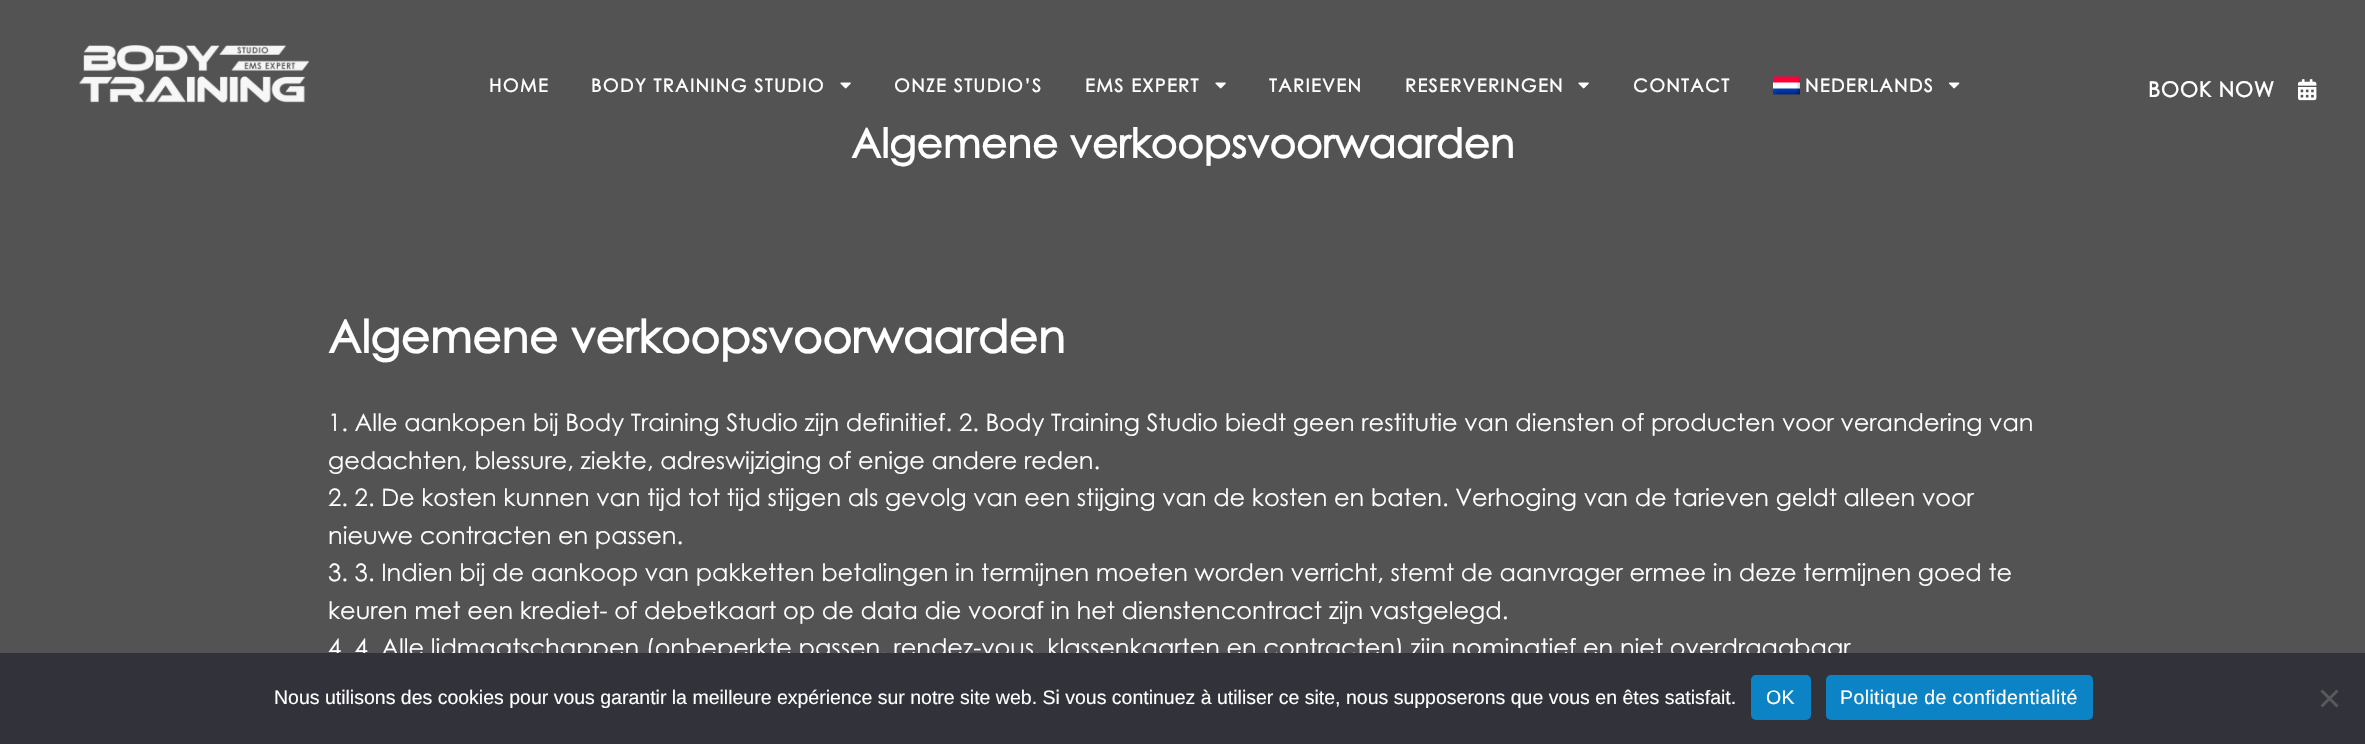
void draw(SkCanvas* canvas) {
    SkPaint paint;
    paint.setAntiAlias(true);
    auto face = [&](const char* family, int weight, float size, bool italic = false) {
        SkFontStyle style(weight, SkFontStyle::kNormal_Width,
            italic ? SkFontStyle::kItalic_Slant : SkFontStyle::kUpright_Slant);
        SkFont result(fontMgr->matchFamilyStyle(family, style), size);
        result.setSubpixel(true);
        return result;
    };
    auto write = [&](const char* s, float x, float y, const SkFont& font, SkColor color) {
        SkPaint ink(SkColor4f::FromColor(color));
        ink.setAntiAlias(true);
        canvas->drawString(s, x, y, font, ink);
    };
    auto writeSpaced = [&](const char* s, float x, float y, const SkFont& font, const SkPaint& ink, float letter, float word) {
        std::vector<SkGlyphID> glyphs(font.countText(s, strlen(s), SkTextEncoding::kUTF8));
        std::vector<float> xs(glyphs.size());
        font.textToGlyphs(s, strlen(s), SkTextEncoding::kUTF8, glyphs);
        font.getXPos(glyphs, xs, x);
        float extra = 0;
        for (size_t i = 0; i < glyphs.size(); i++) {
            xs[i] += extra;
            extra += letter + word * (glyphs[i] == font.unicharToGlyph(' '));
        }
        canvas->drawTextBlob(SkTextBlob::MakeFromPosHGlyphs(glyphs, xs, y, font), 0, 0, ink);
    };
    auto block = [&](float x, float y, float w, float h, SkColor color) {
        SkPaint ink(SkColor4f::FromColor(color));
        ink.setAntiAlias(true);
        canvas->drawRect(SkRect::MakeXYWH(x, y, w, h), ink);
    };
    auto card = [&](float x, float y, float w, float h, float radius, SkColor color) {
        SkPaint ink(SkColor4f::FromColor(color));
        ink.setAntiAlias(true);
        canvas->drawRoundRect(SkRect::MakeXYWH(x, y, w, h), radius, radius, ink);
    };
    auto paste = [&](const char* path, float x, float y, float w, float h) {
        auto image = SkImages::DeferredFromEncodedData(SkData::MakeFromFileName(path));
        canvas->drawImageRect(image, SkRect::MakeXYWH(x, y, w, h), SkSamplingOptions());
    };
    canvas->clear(SkColorSetRGB(83, 83, 83));
    paste("pic1.png", 79, 45, 230, 58);
    auto kFont1 = face("Century Gothic", 700, 18);
    paint.setColor(SK_ColorWHITE);
    writeSpaced("HOME", 489, 92, kFont1, paint, 1.5f, 0);
    writeSpaced("BODY TRAINING STUDIO", 591, 92, kFont1, paint, 1.5f, 0);
    paste("pic2.png", 840, 82, 11, 7);
    writeSpaced("ONZE STUDIO’S", 894, 92, kFont1, paint, 1.5f, 0);
    writeSpaced("EMS EXPERT", 1085, 92, kFont1, paint, 1.5f, 0);
    paste("pic2.png", 1215, 82, 11, 7);
    writeSpaced("TARIEVEN", 1269, 92, kFont1, paint, 1.5f, 0);
    writeSpaced("RESERVERINGEN", 1405, 92, kFont1, paint, 1.5f, 0);
    paste("pic2.png", 1578, 82, 11, 7);
    writeSpaced("CONTACT", 1633, 92, kFont1, paint, 1.5f, 0);
    paste("pic3.png", 1773, 76, 27, 19);
    writeSpaced("NEDERLANDS", 1805, 92, kFont1, paint, 1.5f, 0);
    paste("pic4.png", 1948, 82, 12, 7);
    auto kFont2 = face("Century Gothic", 700, 21);
    writeSpaced("BOOK NOW", 2148, 97, kFont2, paint, 0.75f, 0);
    paste("pic5.png", 2298, 79, 19, 22);
    auto kFont3 = face("Century Gothic", 700, 40.5f);
    write("Algemene verkoopsvoorwaarden", 851, 158, kFont3, SK_ColorWHITE);
    auto kFont4 = face("Century Gothic", 700, 45);
    write("Algemene verkoopsvoorwaarden", 328, 353, kFont4, SK_ColorWHITE);
    auto kFont5 = face("Century Gothic", 400, 24);
    write("1. Alle aankopen bij Body Training Studio zijn definitief. 2. Body Training Studio biedt geen restitutie van diensten of producten voor verandering van", 328, 431, kFont5, SK_ColorWHITE);
    write("gedachten, blessure, ziekte, adreswijziging of enige andere reden.", 328, 469, kFont5, SK_ColorWHITE);
    write("2. 2. De kosten kunnen van tijd tot tijd stijgen als gevolg van een stijging van de kosten en baten. Verhoging van de tarieven geldt alleen voor", 328, 506, kFont5, SK_ColorWHITE);
    write("nieuwe contracten en passen.", 328, 544, kFont5, SK_ColorWHITE);
    write("3. 3. Indien bij de aankoop van pakketten betalingen in termijnen moeten worden verricht, stemt de aanvrager ermee in deze termijnen goed te", 328, 581, kFont5, SK_ColorWHITE);
    write("keuren met een krediet- of debetkaart op de data die vooraf in het dienstencontract zijn vastgelegd.", 328, 619, kFont5, SK_ColorWHITE);
    write("4. 4. Alle lidmaatschappen (onbeperkte passen, rendez-vous, klassenkaarten en contracten) zijn nominatief en niet overdraagbaar.", 328, 656, kFont5, SK_ColorWHITE);
    block(0, 653, 2365, 91, SkColorSetRGB(50, 50, 58));
    auto kFont6 = face("Liberation Sans", 400, 19.5f);
    write("Nous utilisons des cookies pour vous garantir la meilleure expérience sur notre site web. Si vous continuez à utiliser ce site, nous supposerons que vous en êtes satisfait.", 274, 704, kFont6, SK_ColorWHITE);
    card(1751, 675, 60, 45, 5, SkColorSetRGB(12, 131, 196));
    writeSpaced("OK", 1766, 704, kFont6, paint, 0.4f, 0);
    card(1826, 675, 267, 45, 5, SkColorSetRGB(12, 131, 196));
    writeSpaced("Politique de confidentialité", 1840, 704, kFont6, paint, 0.4f, 0);
    paint.setColor(SkColorSetRGB(89, 89, 93));
    canvas->drawPath(SkPathBuilder().moveTo(2336.5f, 689.5f).lineTo(2338.5f, 691.5f).lineTo(2322.5f, 707.5f).lineTo(2320.5f, 705.5f).close().detach(), paint);
    canvas->drawPath(SkPathBuilder().moveTo(2320.5f, 691.5f).lineTo(2322.5f, 689.5f).lineTo(2338.5f, 705.5f).lineTo(2336.5f, 707.5f).close().detach(), paint);
}
